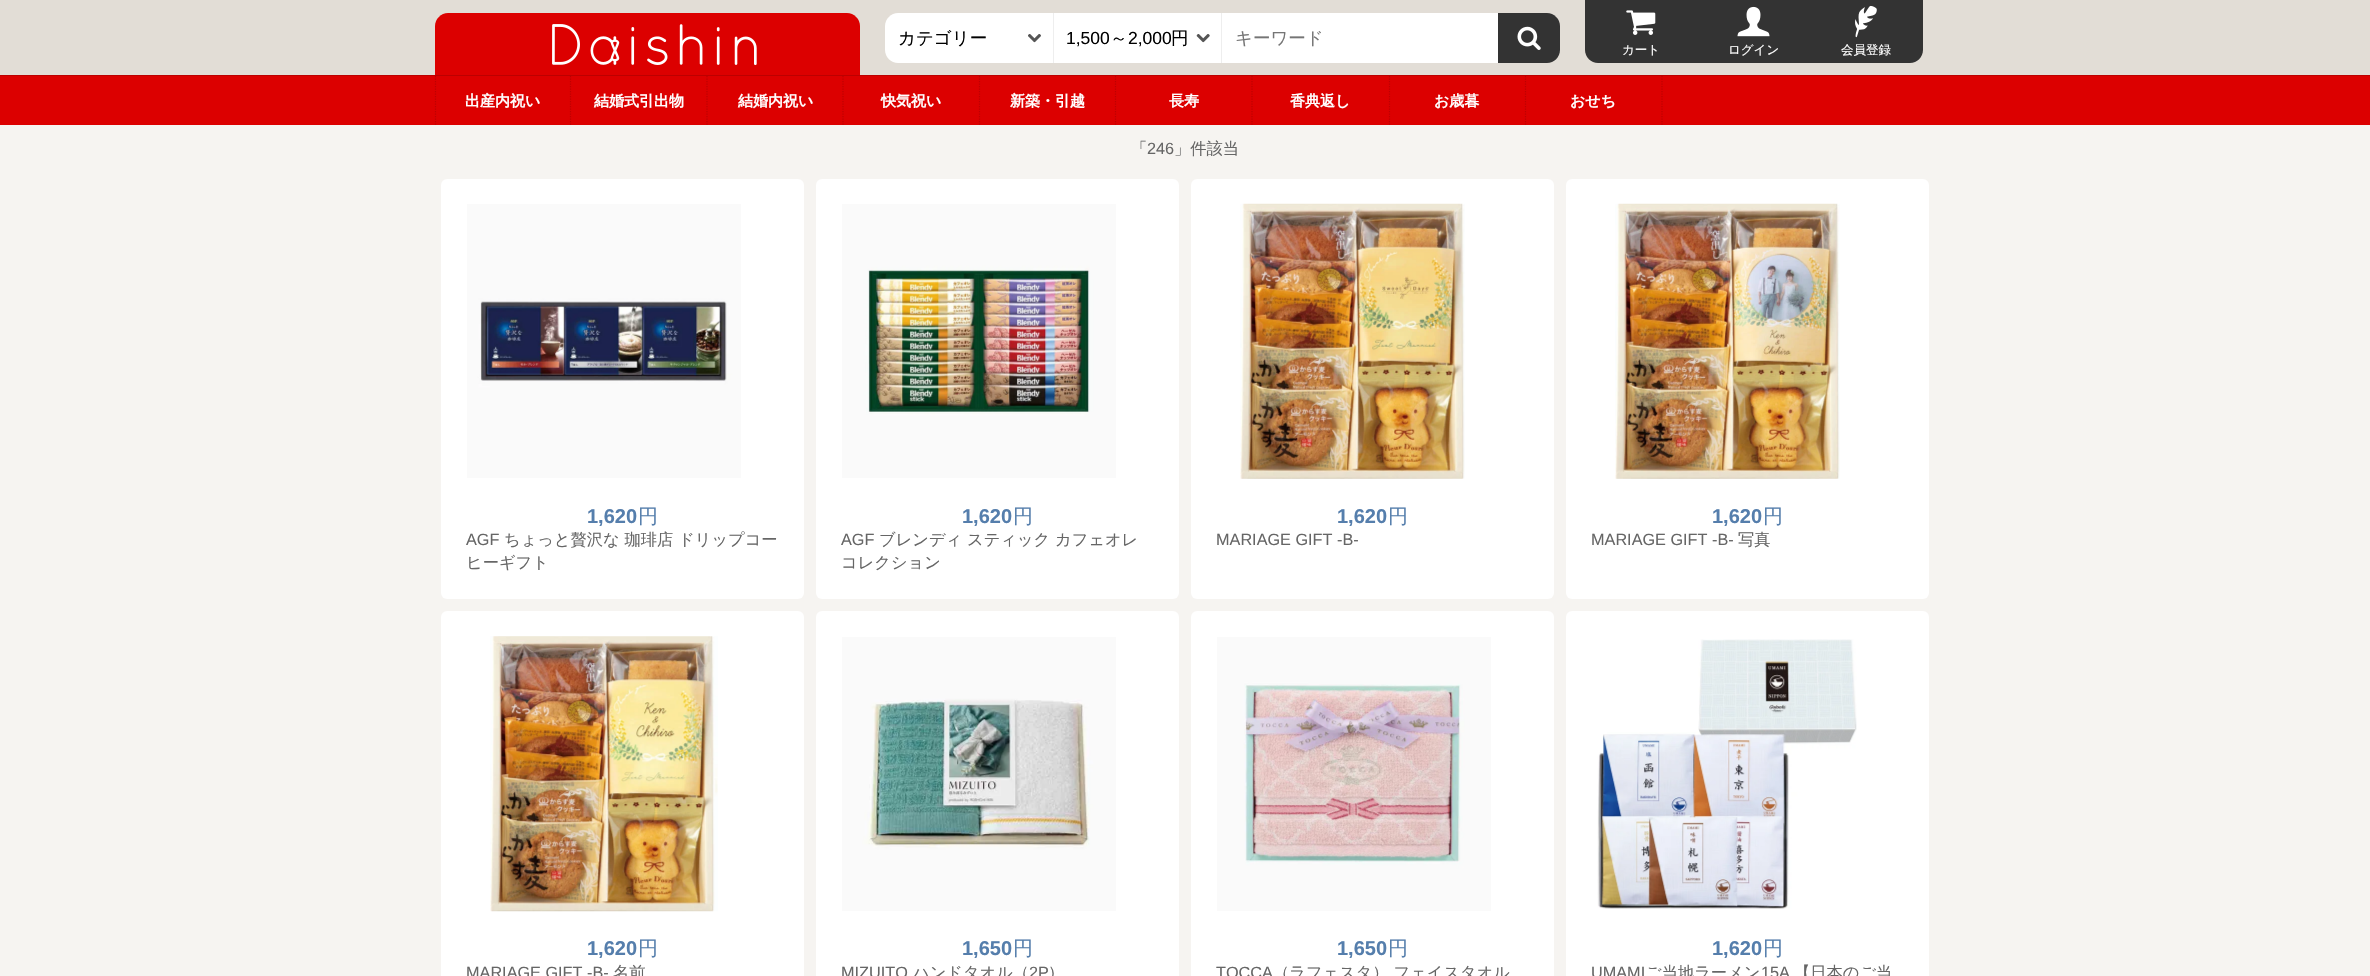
void draw(SkCanvas* canvas) {
    SkPaint paint;
    paint.setAntiAlias(true);
    auto face = [&](const char* family, int weight, float size, bool italic = false) {
        SkFontStyle style(weight, SkFontStyle::kNormal_Width,
            italic ? SkFontStyle::kItalic_Slant : SkFontStyle::kUpright_Slant);
        SkFont result(fontMgr->matchFamilyStyle(family, style), size);
        result.setSubpixel(true);
        return result;
    };
    auto write = [&](const char* s, float x, float y, const SkFont& font, SkColor color) {
        SkPaint ink(SkColor4f::FromColor(color));
        ink.setAntiAlias(true);
        canvas->drawString(s, x, y, font, ink);
    };
    auto block = [&](float x, float y, float w, float h, SkColor color) {
        SkPaint ink(SkColor4f::FromColor(color));
        ink.setAntiAlias(true);
        canvas->drawRect(SkRect::MakeXYWH(x, y, w, h), ink);
    };
    auto card = [&](float x, float y, float w, float h, float radius, SkColor color) {
        SkPaint ink(SkColor4f::FromColor(color));
        ink.setAntiAlias(true);
        canvas->drawRoundRect(SkRect::MakeXYWH(x, y, w, h), radius, radius, ink);
    };
    auto paste = [&](const char* path, float x, float y, float w, float h) {
        auto image = SkImages::DeferredFromEncodedData(SkData::MakeFromFileName(path));
        canvas->drawImageRect(image, SkRect::MakeXYWH(x, y, w, h), SkSamplingOptions());
    };
    canvas->clear(SkColorSetRGB(226, 221, 214));
    paint.setColor(SkColorSetRGB(220, 0, 0));
    canvas->drawPath(SkPathBuilder().moveTo(448, 13).lineTo(847, 13).cubicTo(854, 13, 860, 19, 860, 26).lineTo(860, 75).lineTo(435, 75).lineTo(435, 26).cubicTo(435, 19, 441, 13, 448, 13).close().detach(), paint);
    paste("pic1.png", 552, 24, 205, 42);
    paint.setColor(SK_ColorWHITE);
    canvas->drawPath(SkPathBuilder().moveTo(898, 13).lineTo(1054, 13).lineTo(1054, 63).lineTo(898, 63).cubicTo(891, 63, 885, 57, 885, 50).lineTo(885, 26).cubicTo(885, 19, 891, 13, 898, 13).close().detach(), paint);
    block(1053, 13, 1, 50, SkColorSetRGB(238, 238, 238));
    auto kFont1 = face("WenQuanYi Zen Hei", 500, 17.5f);
    write("カテゴリー", 898, 44, kFont1, SK_ColorBLACK);
    paste("pic2.png", 1028, 34, 13, 9);
    block(1054, 13, 444, 50, SK_ColorWHITE);
    block(1221, 13, 1, 50, SkColorSetRGB(238, 238, 238));
    auto kFont2 = face("Liberation Sans", 400, 17.5f);
    write("1,500", 1066, 44, kFont2, SK_ColorBLACK);
    write("～", 1110, 44, kFont1, SK_ColorBLACK);
    write("2,000", 1128, 44, kFont2, SK_ColorBLACK);
    write("円", 1171, 44, kFont1, SK_ColorBLACK);
    paste("pic3.png", 1196, 34, 14, 9);
    write("キーワード", 1235, 44, kFont1, SkColorSetRGB(117, 117, 117));
    paint.setColor(SkColorSetRGB(51, 51, 51));
    canvas->drawPath(SkPathBuilder().moveTo(1498, 13).lineTo(1547, 13).cubicTo(1554, 13, 1560, 19, 1560, 26).lineTo(1560, 50).cubicTo(1560, 57, 1554, 63, 1547, 63).lineTo(1498, 63).close().detach(), paint);
    paste("pic4.png", 1517, 26, 24, 24);
    canvas->drawPath(SkPathBuilder().moveTo(1585, 0).lineTo(1698, 0).lineTo(1698, 63).lineTo(1598, 63).cubicTo(1591, 63, 1585, 57, 1585, 50).close().detach(), paint);
    paste("pic5.png", 1626, 10, 30, 25);
    auto kFont3 = face("WenQuanYi Zen Hei", 500, 12.5f);
    write("カート", 1622, 54, kFont3, SK_ColorWHITE);
    block(1698, 0, 112, 63, SkColorSetRGB(51, 51, 51));
    paste("pic6.png", 1737, 6, 33, 31);
    write("ログイン", 1728, 54, kFont3, SK_ColorWHITE);
    canvas->drawPath(SkPathBuilder().moveTo(1810, 0).lineTo(1923, 0).lineTo(1923, 50).cubicTo(1923, 57, 1917, 63, 1910, 63).lineTo(1810, 63).close().detach(), paint);
    paste("pic7.png", 1855, 5, 22, 33);
    write("会員登録", 1841, 54, kFont3, SK_ColorWHITE);
    block(0, 76, 2370, 49, SkColorSetRGB(220, 0, 0));
    block(0, 75, 2370, 1, SkColorSetRGB(188, 0, 0));
    paint.setStyle(SkPaint::kStroke_Style);
    paint.setStrokeWidth(1.2f);
    paint.setColor(SkColorSetRGB(188, 0, 0));
    paint.setPathEffect(SkDashPathEffect::Make({{1.25f, 1.25f}}, 0));
    canvas->drawPath(SkPathBuilder().moveTo(570.5f, 76).lineTo(570.5f, 126).detach(), paint);
    paint.setPathEffect(nullptr);
    paint.setPathEffect(SkDashPathEffect::Make({{1.25f, 1.25f}}, 0));
    canvas->drawPath(SkPathBuilder().moveTo(435.5f, 76).lineTo(435.5f, 126).detach(), paint);
    paint.setPathEffect(nullptr);
    auto kFont4 = face("WenQuanYi Zen Hei", 700, 15);
    write("出産内祝い", 465, 106, kFont4, SK_ColorWHITE);
    paint.setPathEffect(SkDashPathEffect::Make({{1.25f, 1.25f}}, 0));
    canvas->drawPath(SkPathBuilder().moveTo(707, 76).lineTo(707, 126).detach(), paint);
    paint.setPathEffect(nullptr);
    write("結婚式引出物", 594, 106, kFont4, SK_ColorWHITE);
    paint.setPathEffect(SkDashPathEffect::Make({{1.25f, 1.25f}}, 0));
    canvas->drawPath(SkPathBuilder().moveTo(843, 76).lineTo(843, 126).detach(), paint);
    paint.setPathEffect(nullptr);
    write("結婚内祝い", 738, 106, kFont4, SK_ColorWHITE);
    paint.setPathEffect(SkDashPathEffect::Make({{1.25f, 1.25f}}, 0));
    canvas->drawPath(SkPathBuilder().moveTo(979.5f, 76).lineTo(979.5f, 126).detach(), paint);
    paint.setPathEffect(nullptr);
    write("快気祝い", 881, 106, kFont4, SK_ColorWHITE);
    paint.setPathEffect(SkDashPathEffect::Make({{1.25f, 1.25f}}, 0));
    canvas->drawPath(SkPathBuilder().moveTo(1115.5f, 76).lineTo(1115.5f, 126).detach(), paint);
    paint.setPathEffect(nullptr);
    write("新築・引越", 1010, 106, kFont4, SK_ColorWHITE);
    paint.setPathEffect(SkDashPathEffect::Make({{1.25f, 1.25f}}, 0));
    canvas->drawPath(SkPathBuilder().moveTo(1252, 76).lineTo(1252, 126).detach(), paint);
    paint.setPathEffect(nullptr);
    write("長寿", 1169, 106, kFont4, SK_ColorWHITE);
    paint.setPathEffect(SkDashPathEffect::Make({{1.25f, 1.25f}}, 0));
    canvas->drawPath(SkPathBuilder().moveTo(1389.5f, 76).lineTo(1389.5f, 126).detach(), paint);
    paint.setPathEffect(nullptr);
    write("香典返し", 1290, 106, kFont4, SK_ColorWHITE);
    paint.setPathEffect(SkDashPathEffect::Make({{1.25f, 1.25f}}, 0));
    canvas->drawPath(SkPathBuilder().moveTo(1525.5f, 76).lineTo(1525.5f, 126).detach(), paint);
    paint.setPathEffect(nullptr);
    write("お歳暮", 1434, 106, kFont4, SK_ColorWHITE);
    paint.setPathEffect(SkDashPathEffect::Make({{1.25f, 1.25f}}, 0));
    canvas->drawPath(SkPathBuilder().moveTo(1662, 76).lineTo(1662, 126).detach(), paint);
    paint.setPathEffect(nullptr);
    write("おせち", 1570, 106, kFont4, SK_ColorWHITE);
    block(0, 125, 2370, 851, SkColorSetRGB(246, 244, 241));
    auto kFont5 = face("WenQuanYi Zen Hei", 500, 16.25f);
    write("「", 1131, 154, kFont5, SkColorSetRGB(102, 102, 102));
    auto kFont6 = face("Liberation Sans", 400, 16.25f);
    write("246", 1147, 154, kFont6, SkColorSetRGB(102, 102, 102));
    write("」件該当", 1174, 154, kFont5, SkColorSetRGB(102, 102, 102));
    card(441, 179, 363, 420, 6, SK_ColorWHITE);
    paste("pic8.png", 467, 204, 274, 274);
    auto kFont7 = face("Liberation Sans", 700, 20);
    write("1,620", 587, 523, kFont7, SkColorSetRGB(85, 126, 172));
    auto kFont8 = face("WenQuanYi Zen Hei", 500, 20);
    write("円", 638, 523, kFont8, SkColorSetRGB(85, 126, 172));
    write("AGF", 466, 545, kFont6, SkColorSetRGB(102, 102, 102));
    write("ちょっと贅沢な 珈琲店 ドリップコー", 504, 545, kFont5, SkColorSetRGB(102, 102, 102));
    write("ヒーギフト", 466, 568, kFont5, SkColorSetRGB(102, 102, 102));
    card(816, 179, 363, 420, 6, SK_ColorWHITE);
    paste("pic9.png", 842, 204, 274, 274);
    write("1,620", 962, 523, kFont7, SkColorSetRGB(85, 126, 172));
    write("円", 1013, 523, kFont8, SkColorSetRGB(85, 126, 172));
    write("AGF", 841, 545, kFont6, SkColorSetRGB(102, 102, 102));
    write("ブレンディ スティック カフェオレ", 879, 545, kFont5, SkColorSetRGB(102, 102, 102));
    write("コレクション", 841, 568, kFont5, SkColorSetRGB(102, 102, 102));
    card(1191, 179, 363, 420, 6, SK_ColorWHITE);
    paste("pic10.png", 1240, 203, 225, 276);
    write("1,620", 1337, 523, kFont7, SkColorSetRGB(85, 126, 172));
    write("円", 1388, 523, kFont8, SkColorSetRGB(85, 126, 172));
    write("MARIAGE GIFT -B-", 1216, 545, kFont6, SkColorSetRGB(102, 102, 102));
    card(1566, 179, 363, 420, 6, SK_ColorWHITE);
    paste("pic11.png", 1615, 203, 225, 276);
    write("1,620", 1712, 523, kFont7, SkColorSetRGB(85, 126, 172));
    write("円", 1763, 523, kFont8, SkColorSetRGB(85, 126, 172));
    write("MARIAGE GIFT -B-", 1591, 545, kFont6, SkColorSetRGB(102, 102, 102));
    write("写真", 1738, 545, kFont5, SkColorSetRGB(102, 102, 102));
    card(441, 611, 363, 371, 6, SK_ColorWHITE);
    paste("pic12.png", 490, 636, 228, 276);
    write("1,620", 587, 955, kFont7, SkColorSetRGB(85, 126, 172));
    write("円", 638, 955, kFont8, SkColorSetRGB(85, 126, 172));
    write("MARIAGE GIFT -B-", 466, 978, kFont6, SkColorSetRGB(102, 102, 102));
    write("名前", 613, 978, kFont5, SkColorSetRGB(102, 102, 102));
    card(816, 611, 363, 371, 6, SK_ColorWHITE);
    paste("pic13.png", 842, 637, 274, 274);
    write("1,650", 962, 955, kFont7, SkColorSetRGB(85, 126, 172));
    write("円", 1013, 955, kFont8, SkColorSetRGB(85, 126, 172));
    write("MIZUITO", 841, 978, kFont6, SkColorSetRGB(102, 102, 102));
    write("ハンドタオル（", 913, 978, kFont5, SkColorSetRGB(102, 102, 102));
    write("2P", 1029, 978, kFont6, SkColorSetRGB(102, 102, 102));
    write("）", 1048, 978, kFont5, SkColorSetRGB(102, 102, 102));
    card(1191, 611, 363, 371, 6, SK_ColorWHITE);
    paste("pic14.png", 1217, 637, 274, 274);
    write("1,650", 1337, 955, kFont7, SkColorSetRGB(85, 126, 172));
    write("円", 1388, 955, kFont8, SkColorSetRGB(85, 126, 172));
    write("TOCCA", 1216, 978, kFont6, SkColorSetRGB(102, 102, 102));
    write("（ラフェスタ） フェイスタオル", 1273, 978, kFont5, SkColorSetRGB(102, 102, 102));
    card(1566, 611, 363, 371, 6, SK_ColorWHITE);
    paste("pic15.png", 1597, 639, 260, 270);
    write("1,620", 1712, 955, kFont7, SkColorSetRGB(85, 126, 172));
    write("円", 1763, 955, kFont8, SkColorSetRGB(85, 126, 172));
    write("UMAMI", 1591, 978, kFont6, SkColorSetRGB(102, 102, 102));
    write("ご当地ラーメン", 1645, 978, kFont5, SkColorSetRGB(102, 102, 102));
    write("15A", 1761, 978, kFont6, SkColorSetRGB(102, 102, 102));
    write("【日本のご当", 1794, 978, kFont5, SkColorSetRGB(102, 102, 102));
}
